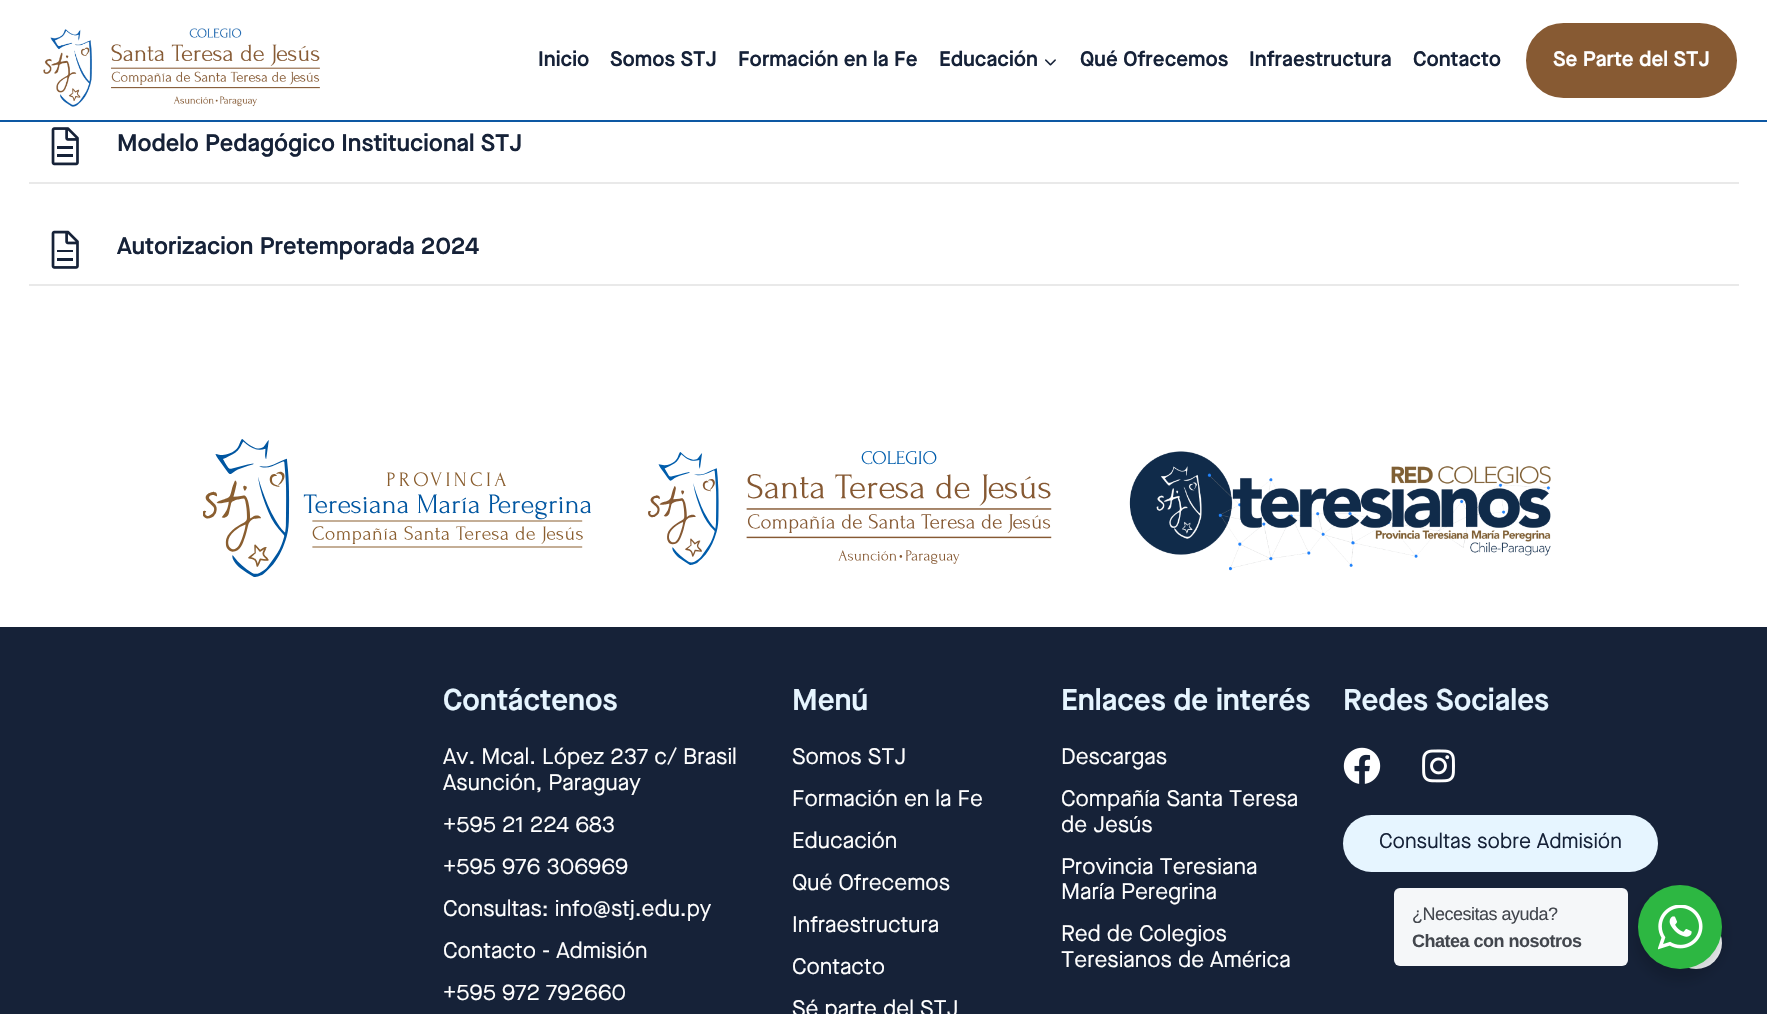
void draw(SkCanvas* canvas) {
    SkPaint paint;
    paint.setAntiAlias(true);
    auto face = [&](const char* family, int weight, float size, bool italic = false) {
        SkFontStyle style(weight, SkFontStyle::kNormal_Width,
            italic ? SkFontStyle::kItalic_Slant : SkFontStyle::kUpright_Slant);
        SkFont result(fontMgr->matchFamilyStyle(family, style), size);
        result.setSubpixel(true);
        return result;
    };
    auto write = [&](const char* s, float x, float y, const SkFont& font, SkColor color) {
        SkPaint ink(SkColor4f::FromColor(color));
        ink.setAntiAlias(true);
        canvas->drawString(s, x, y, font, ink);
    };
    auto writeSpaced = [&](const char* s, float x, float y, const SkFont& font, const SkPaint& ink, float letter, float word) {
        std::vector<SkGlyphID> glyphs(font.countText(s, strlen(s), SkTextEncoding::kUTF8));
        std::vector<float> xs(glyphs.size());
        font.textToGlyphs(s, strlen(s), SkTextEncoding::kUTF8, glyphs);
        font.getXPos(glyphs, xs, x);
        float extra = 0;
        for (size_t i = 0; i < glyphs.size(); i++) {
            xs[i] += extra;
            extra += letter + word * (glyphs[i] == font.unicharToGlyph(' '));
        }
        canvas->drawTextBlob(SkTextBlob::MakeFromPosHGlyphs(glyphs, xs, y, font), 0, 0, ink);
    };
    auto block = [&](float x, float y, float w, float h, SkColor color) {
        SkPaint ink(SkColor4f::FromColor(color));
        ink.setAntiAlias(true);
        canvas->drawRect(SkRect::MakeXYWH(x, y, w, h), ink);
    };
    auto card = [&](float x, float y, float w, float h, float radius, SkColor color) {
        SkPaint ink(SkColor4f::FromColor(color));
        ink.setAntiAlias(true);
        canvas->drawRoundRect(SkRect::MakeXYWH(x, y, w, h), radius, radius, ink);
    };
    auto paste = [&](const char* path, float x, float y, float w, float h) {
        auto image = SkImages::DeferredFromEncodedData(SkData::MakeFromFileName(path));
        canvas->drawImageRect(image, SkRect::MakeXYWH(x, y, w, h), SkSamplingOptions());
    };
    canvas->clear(SK_ColorWHITE);
    block(0, 120, 1767, 2, SkColorSetRGB(13, 88, 163));
    paste("pic1.png", 43, 28, 277, 79);
    auto kFont1 = face("Maison Neue", 600, 21);
    write("Inicio", 538, 66, kFont1, SkColorSetRGB(22, 34, 56));
    write("Somos STJ", 610, 66, kFont1, SkColorSetRGB(22, 34, 56));
    write("Formación en la Fe", 738, 66, kFont1, SkColorSetRGB(22, 34, 56));
    write("Educación", 939, 66, kFont1, SkColorSetRGB(22, 34, 56));
    paste("pic2.png", 1045, 59, 11, 7);
    write("Qué Ofrecemos", 1080, 66, kFont1, SkColorSetRGB(22, 34, 56));
    write("Infraestructura", 1249, 66, kFont1, SkColorSetRGB(22, 34, 56));
    write("Contacto", 1413, 66, kFont1, SkColorSetRGB(22, 34, 56));
    paint.setColor(SkColorSetRGB(135, 90, 51));
    canvas->drawRoundRect(SkRect::MakeXYWH(1527.5f, 24.5f, 208, 72), 36, 36, paint);
    paint.setStyle(SkPaint::kStroke_Style);
    paint.setStrokeWidth(3);
    canvas->drawRoundRect(SkRect::MakeXYWH(1527.5f, 24.5f, 208, 72), 36, 36, paint);
    write("Se Parte del STJ", 1553, 66, kFont1, SK_ColorWHITE);
    block(29, 182, 1710, 2, SkColorSetRGB(233, 233, 233));
    paste("pic3.png", 51, 127, 28, 39);
    auto kFont2 = face("Maison Neue", 600, 24);
    write("Modelo Pedagógico Institucional STJ", 117, 151, kFont2, SkColorSetRGB(22, 34, 56));
    block(29, 284, 1710, 2, SkColorSetRGB(233, 233, 233));
    paste("pic4.png", 51, 230, 28, 39);
    write("Autorizacion Pretemporada 2024", 117, 254, kFont2, SkColorSetRGB(22, 34, 56));
    paste("pic5.png", 203, 439, 388, 138);
    paste("pic6.png", 648, 451, 404, 114);
    paste("pic7.png", 1129, 451, 422, 120);
    block(0, 627, 1767, 387, SkColorSetRGB(22, 34, 56));
    auto kFont3 = face("Maison Neue", 600, 30);
    write("Contáctenos", 443, 710, kFont3, SkColorSetRGB(230, 245, 255));
    auto kFont4 = face("Maison Neue", 400, 22.5f);
    write("Av. Mcal. López 237 c/ Brasil", 443, 764, kFont4, SK_ColorWHITE);
    write("Asunción, Paraguay", 443, 790, kFont4, SK_ColorWHITE);
    write("+595 21 224 683", 443, 832, kFont4, SK_ColorWHITE);
    write("+595 976 306969", 443, 874, kFont4, SK_ColorWHITE);
    write("Consultas: info@stj.edu.py", 443, 916, kFont4, SK_ColorWHITE);
    write("Contacto - Admisión", 443, 958, kFont4, SK_ColorWHITE);
    write("+595 972 792660", 443, 1000, kFont4, SK_ColorWHITE);
    write("Menú", 792, 710, kFont3, SkColorSetRGB(230, 245, 255));
    write("Somos STJ", 792, 764, kFont4, SK_ColorWHITE);
    write("Formación en la Fe", 792, 806, kFont4, SK_ColorWHITE);
    write("Educación", 792, 848, kFont4, SK_ColorWHITE);
    write("Qué Ofrecemos", 792, 890, kFont4, SK_ColorWHITE);
    write("Infraestructura", 792, 932, kFont4, SK_ColorWHITE);
    write("Contacto", 792, 974, kFont4, SK_ColorWHITE);
    write("Sé parte del STJ", 792, 1016, kFont4, SK_ColorWHITE);
    write("Enlaces de interés", 1061, 710, kFont3, SkColorSetRGB(230, 245, 255));
    write("Descargas", 1061, 764, kFont4, SK_ColorWHITE);
    write("Compañía Santa Teresa", 1061, 806, kFont4, SK_ColorWHITE);
    write("de Jesús", 1061, 832, kFont4, SK_ColorWHITE);
    write("Provincia Teresiana", 1061, 874, kFont4, SK_ColorWHITE);
    write("María Peregrina", 1061, 899, kFont4, SK_ColorWHITE);
    write("Red de Colegios", 1061, 941, kFont4, SK_ColorWHITE);
    write("Teresianos de América", 1061, 967, kFont4, SK_ColorWHITE);
    write("Redes Sociales", 1343, 710, kFont3, SkColorSetRGB(230, 245, 255));
    paste("pic8.png", 1343, 747, 38, 37);
    paste("pic9.png", 1422, 749, 33, 34);
    card(1343, 815, 315, 57, 28.5f, SkColorSetRGB(230, 245, 255));
    auto kFont5 = face("Maison Neue", 400, 21);
    write("Consultas sobre Admisión", 1379, 848, kFont5, SkColorSetRGB(22, 34, 56));
    paint.setStyle(SkPaint::kFill_Style);
    paint.setColor(SkColorSetRGB(247, 250, 252));
    canvas->drawCircle(1696, 943, 26, paint);
    paint.setColor(SkColorSetARGB(36, 0, 0, 0));
    paint.setMaskFilter(SkMaskFilter::MakeBlur(kNormal_SkBlurStyle, 6));
    canvas->drawRoundRect(SkRect::MakeXYWH(1635, 891, 90, 90), 45, 45, paint);
    paint.setMaskFilter(nullptr);
    card(1394, 888, 234, 78, 6, SkColorSetRGB(245, 247, 249));
    auto kFont6 = face("Liberation Sans", 400, 18);
    paint.setColor(SkColorSetRGB(67, 71, 78));
    writeSpaced("¿Necesitas ayuda?", 1412, 920, kFont6, paint, -0.5f, 0);
    auto kFont7 = face("Liberation Sans", 700, 18);
    writeSpaced("Chatea con nosotros", 1412, 947, kFont7, paint, -0.5f, 0);
    paint.setColor(SkColorSetRGB(45, 183, 66));
    canvas->drawCircle(1680, 927, 42, paint);
    paste("pic10.png", 1658, 905, 45, 45);
}
